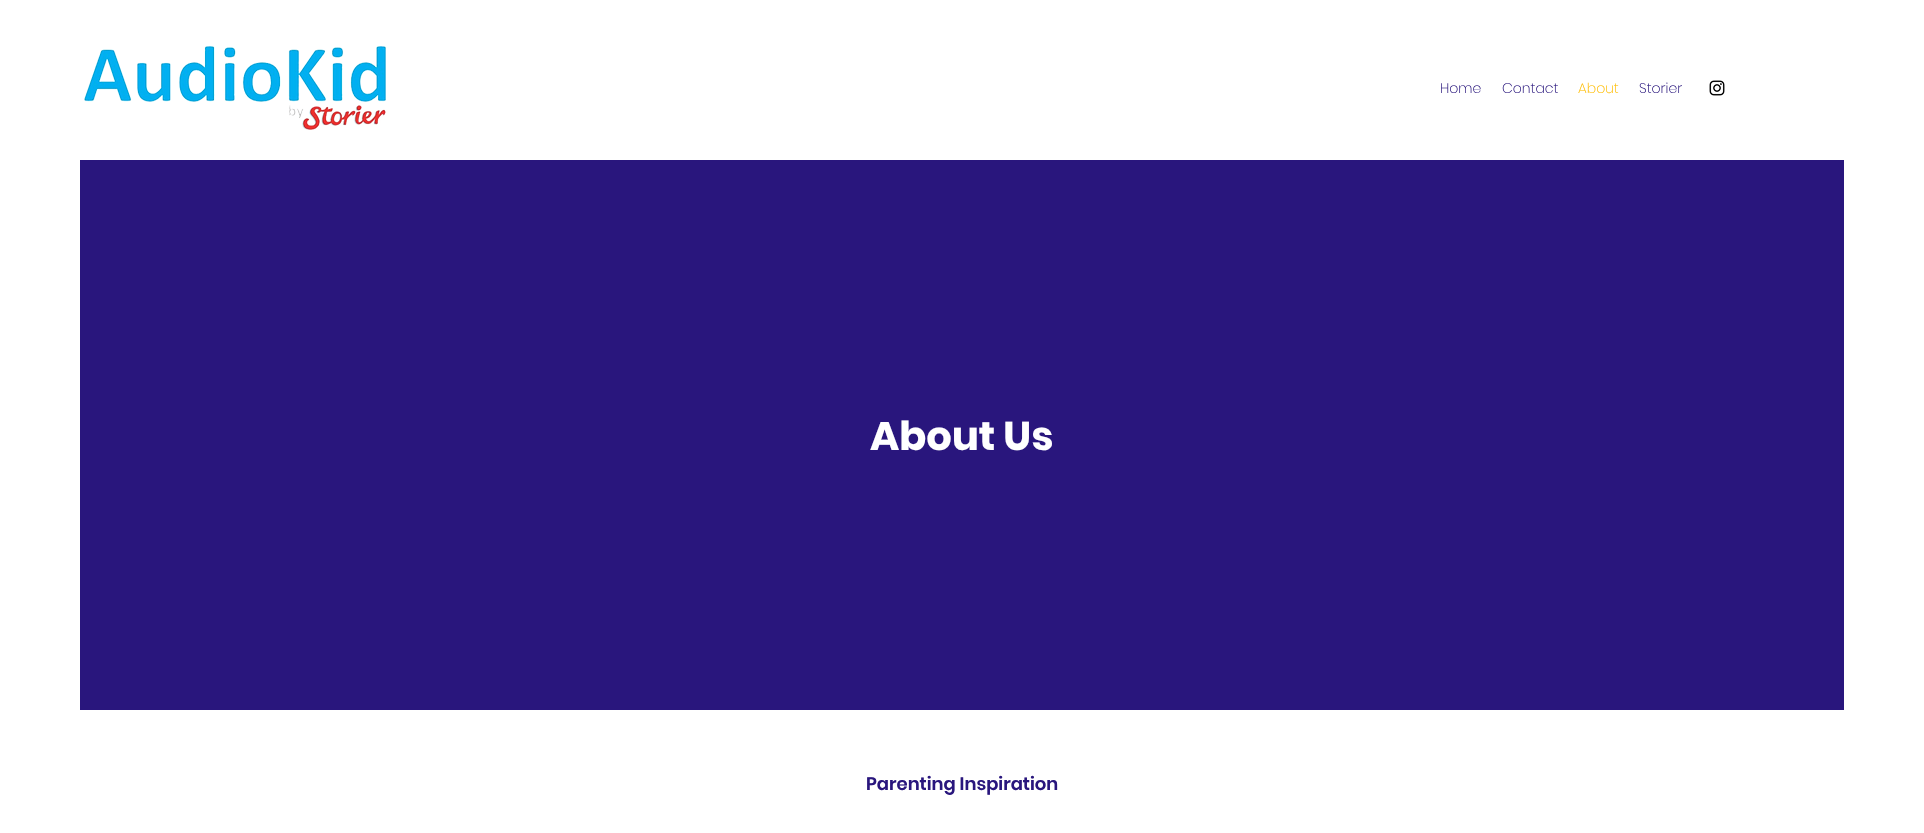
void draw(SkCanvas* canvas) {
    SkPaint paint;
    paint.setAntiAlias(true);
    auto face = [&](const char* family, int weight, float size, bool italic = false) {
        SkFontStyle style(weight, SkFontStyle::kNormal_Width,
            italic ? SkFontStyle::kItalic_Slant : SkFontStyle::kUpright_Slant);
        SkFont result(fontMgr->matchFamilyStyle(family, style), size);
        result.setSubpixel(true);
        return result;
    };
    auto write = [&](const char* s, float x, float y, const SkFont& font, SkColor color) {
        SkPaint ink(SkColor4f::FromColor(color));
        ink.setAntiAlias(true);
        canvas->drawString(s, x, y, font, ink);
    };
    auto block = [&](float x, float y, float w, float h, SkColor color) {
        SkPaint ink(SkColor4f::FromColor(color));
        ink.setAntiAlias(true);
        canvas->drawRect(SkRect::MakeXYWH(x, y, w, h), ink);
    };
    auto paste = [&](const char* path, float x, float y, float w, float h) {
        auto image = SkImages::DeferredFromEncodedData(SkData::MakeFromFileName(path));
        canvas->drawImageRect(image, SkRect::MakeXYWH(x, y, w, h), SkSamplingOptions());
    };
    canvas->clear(SK_ColorWHITE);
    paste("pic1.png", 84, 46, 302, 84);
    auto kFont1 = face("Poppins", 200, 14);
    write("Home", 1440, 93, kFont1, SkColorSetRGB(41, 22, 125));
    write("Contact", 1502, 93, kFont1, SkColorSetRGB(41, 22, 125));
    write("About", 1578, 93, kFont1, SkColorSetRGB(255, 189, 0));
    write("Storier", 1639, 93, kFont1, SkColorSetRGB(41, 22, 125));
    paste("pic2.png", 1709, 80, 16, 16);
    block(80, 160, 1764, 550, SkColorSetRGB(41, 22, 125));
    auto kFont2 = face("Poppins", 700, 40);
    write("About Us", 870, 450, kFont2, SK_ColorWHITE);
    auto kFont3 = face("Poppins", 600, 18);
    write("Parenting Inspiration", 866, 790, kFont3, SkColorSetRGB(41, 22, 125));
}
